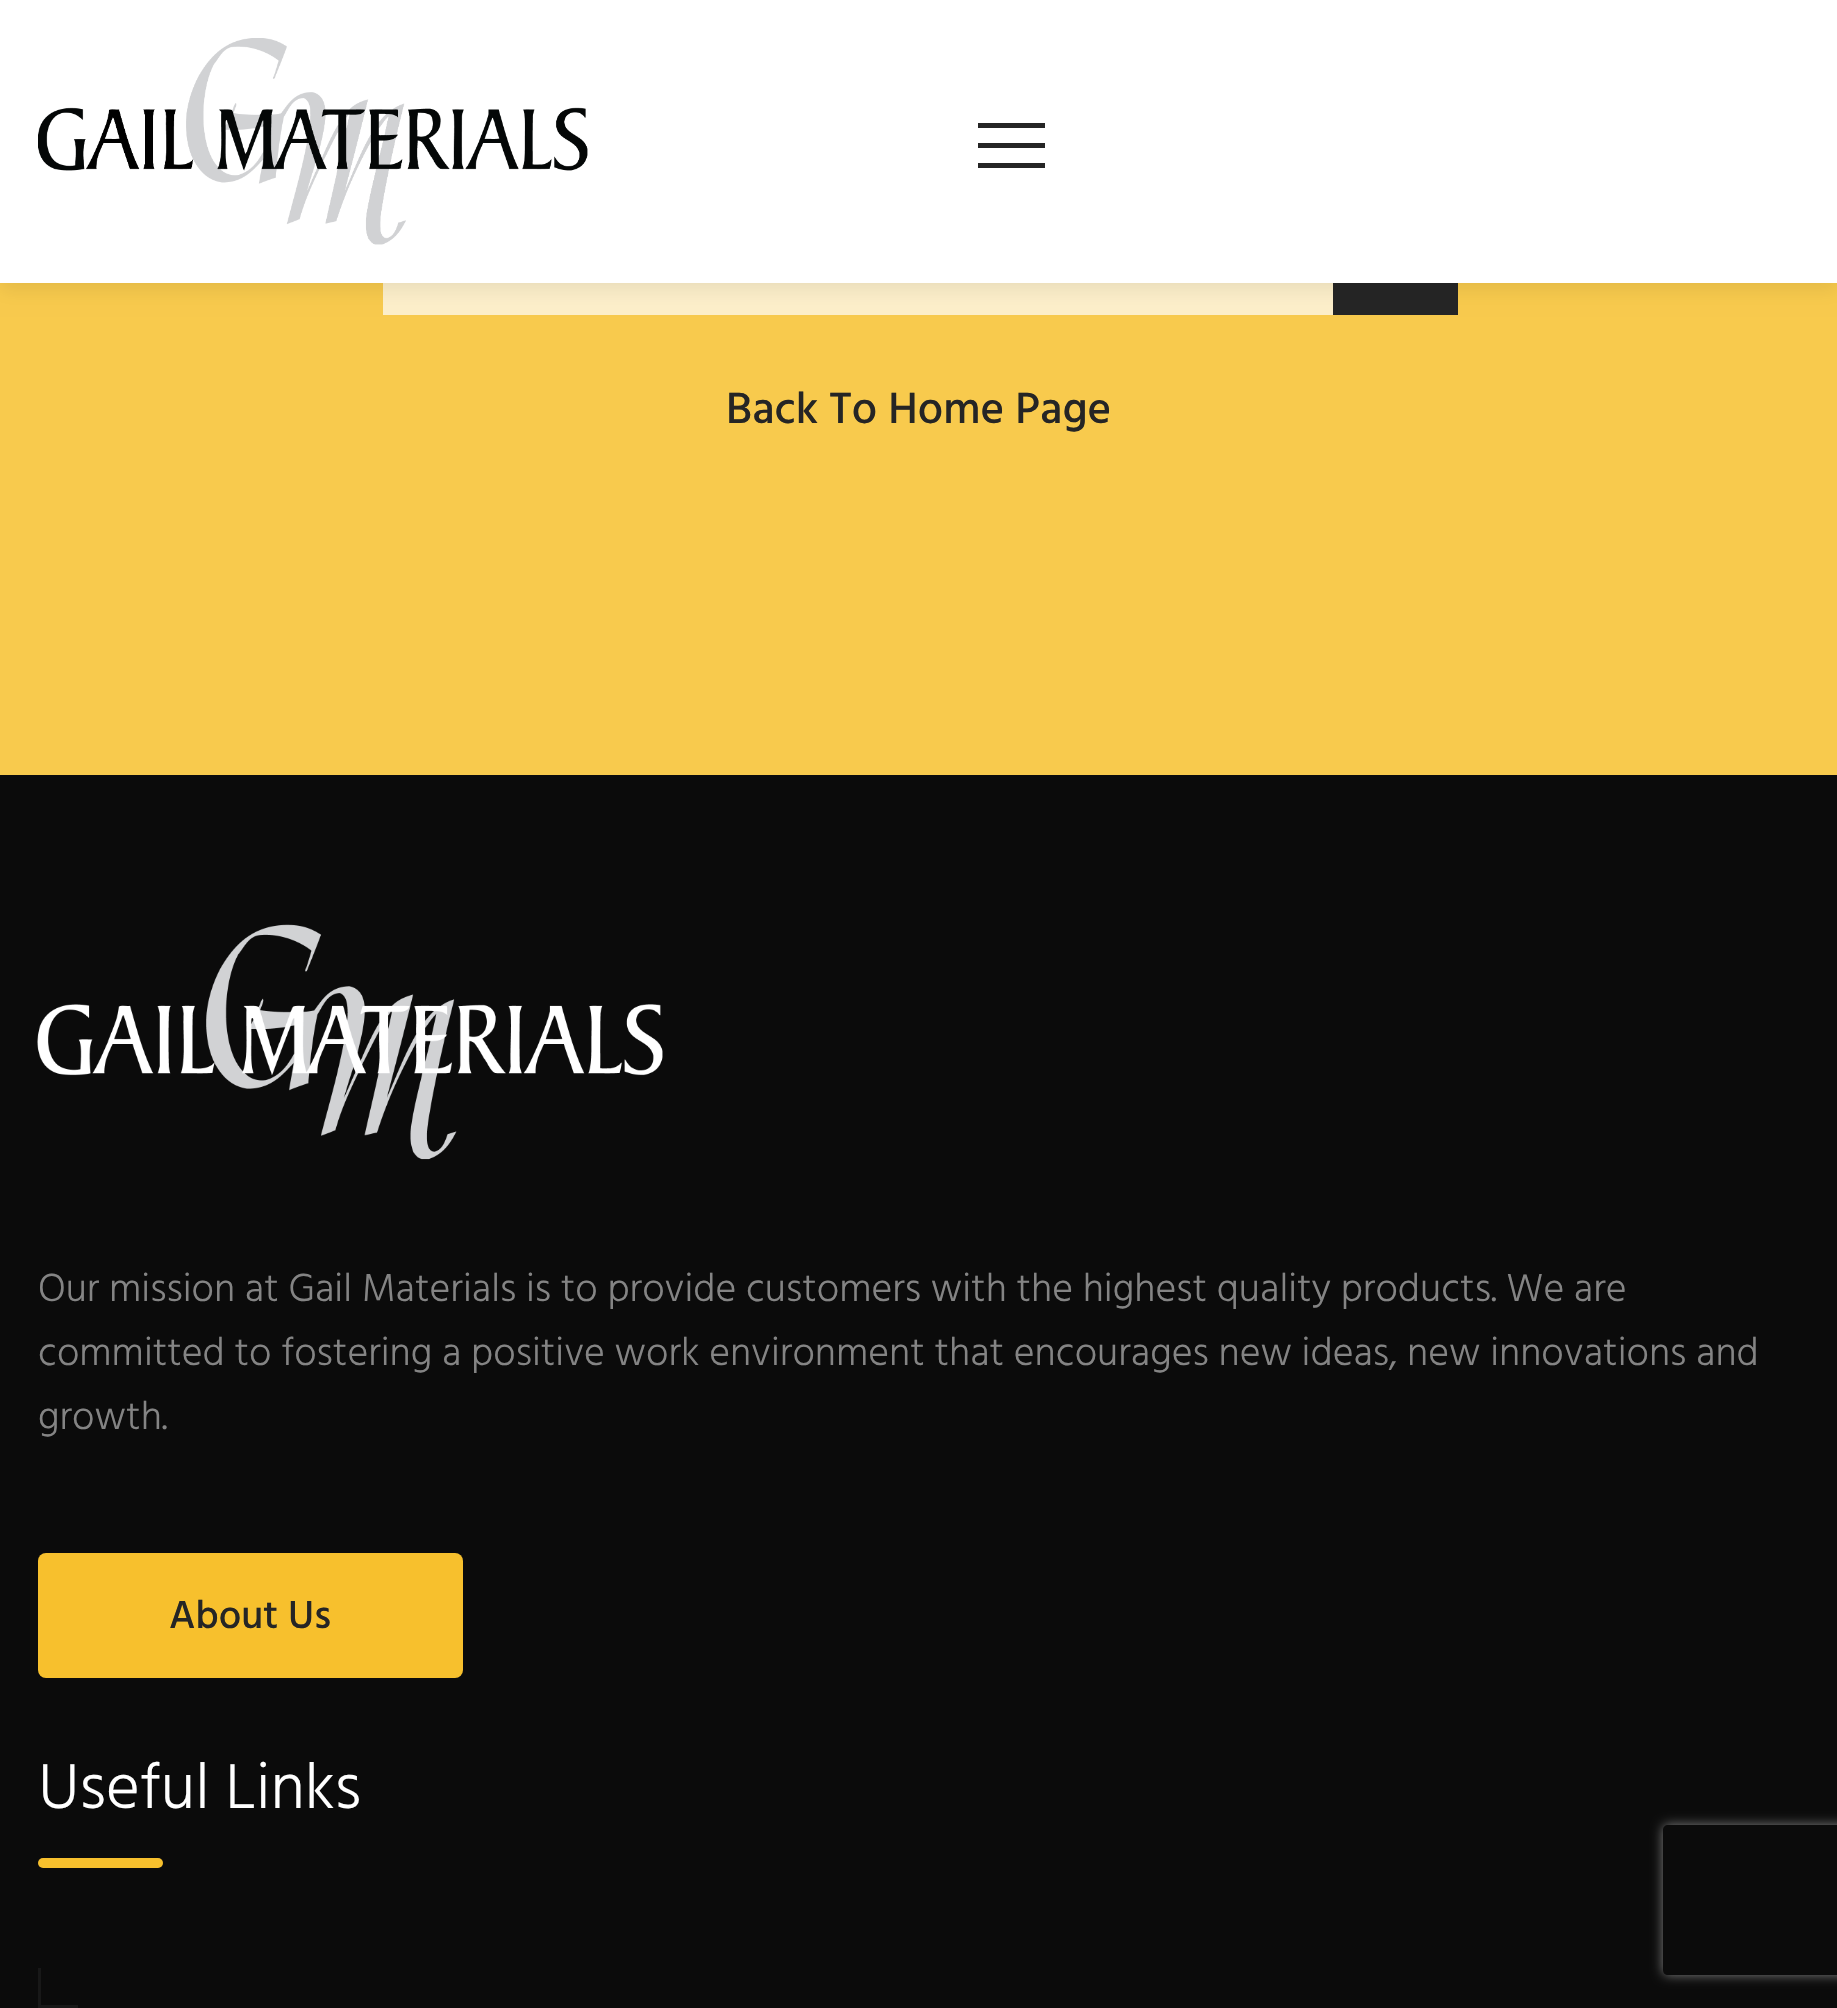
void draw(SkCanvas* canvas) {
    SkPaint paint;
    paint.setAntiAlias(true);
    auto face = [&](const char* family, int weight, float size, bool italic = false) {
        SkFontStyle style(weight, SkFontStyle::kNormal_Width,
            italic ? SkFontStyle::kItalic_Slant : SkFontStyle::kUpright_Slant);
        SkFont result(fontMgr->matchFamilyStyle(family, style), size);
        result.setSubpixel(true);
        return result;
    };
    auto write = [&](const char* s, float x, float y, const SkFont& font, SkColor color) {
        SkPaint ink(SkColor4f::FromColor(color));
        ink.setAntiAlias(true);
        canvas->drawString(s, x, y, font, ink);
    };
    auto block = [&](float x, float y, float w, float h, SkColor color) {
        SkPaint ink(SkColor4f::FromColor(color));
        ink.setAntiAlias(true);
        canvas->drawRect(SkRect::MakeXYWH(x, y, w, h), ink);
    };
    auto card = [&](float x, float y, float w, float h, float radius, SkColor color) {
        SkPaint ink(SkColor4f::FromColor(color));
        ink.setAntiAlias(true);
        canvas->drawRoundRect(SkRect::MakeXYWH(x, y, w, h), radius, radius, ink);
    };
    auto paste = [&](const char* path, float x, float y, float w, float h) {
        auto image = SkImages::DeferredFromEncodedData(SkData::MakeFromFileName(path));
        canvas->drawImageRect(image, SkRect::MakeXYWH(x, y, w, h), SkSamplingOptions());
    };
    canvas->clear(SkColorSetRGB(248, 202, 77));
    block(383, 283, 950, 32, SkColorSetRGB(253, 239, 202));
    block(1333, 283, 125, 32, SkColorSetRGB(37, 37, 37));
    paint.setColor(SkColorSetARGB(20, 0, 0, 0));
    paint.setMaskFilter(SkMaskFilter::MakeBlur(kNormal_SkBlurStyle, 9));
    canvas->drawRect(SkRect::MakeXYWH(0, 8, 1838, 282), paint);
    paint.setMaskFilter(nullptr);
    block(0, 0, 1837, 283, SK_ColorWHITE);
    paste("pic1.png", 38, 38, 550, 207);
    block(978, 143, 67, 5, SkColorSetRGB(37, 37, 37));
    block(978, 123, 67, 5, SkColorSetRGB(37, 37, 37));
    block(978, 163, 67, 5, SkColorSetRGB(37, 37, 37));
    auto kFont1 = face("Hind", 500, 45);
    write("Back To Home Page", 726, 423, kFont1, SkColorSetRGB(37, 37, 37));
    block(0, 775, 1837, 1233, SkColorSetRGB(11, 11, 11));
    paste("pic2.png", 37, 924, 626, 236);
    auto kFont2 = face("Hind", 300, 40);
    write("Our mission at Gail Materials is to provide customers with the highest quality products. We are", 38, 1301, kFont2, SkColorSetRGB(132, 132, 132));
    write("committed to fostering a positive work environment that encourages new ideas, new innovations and", 38, 1365, kFont2, SkColorSetRGB(132, 132, 132));
    write("growth.", 38, 1429, kFont2, SkColorSetRGB(132, 132, 132));
    card(38, 1553, 425, 125, 8, SkColorSetRGB(247, 192, 45));
    auto kFont3 = face("Hind", 500, 40);
    write("About Us", 169, 1628, kFont3, SkColorSetRGB(37, 37, 37));
    auto kFont4 = face("Hind", 300, 65);
    write("Useful Links", 38, 1808, kFont4, SK_ColorWHITE);
    card(38, 1858, 125, 10, 5, SkColorSetRGB(247, 192, 45));
    block(38, 1968, 3, 40, SkColorSetRGB(24, 24, 24));
    block(40, 2005, 38, 3, SkColorSetRGB(24, 24, 24));
    canvas->save();
    canvas->clipPath(SkPathBuilder(SkPathFillType::kEvenOdd).moveTo(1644, 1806).lineTo(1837, 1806).lineTo(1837, 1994).lineTo(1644, 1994).close().moveTo(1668, 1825).lineTo(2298, 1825).cubicTo(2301, 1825, 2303, 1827, 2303, 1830).lineTo(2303, 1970).cubicTo(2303, 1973, 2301, 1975, 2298, 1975).lineTo(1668, 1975).cubicTo(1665, 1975, 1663, 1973, 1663, 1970).lineTo(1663, 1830).cubicTo(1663, 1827, 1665, 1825, 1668, 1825).close().detach(), true);
    paint.setColor(SkColorSetRGB(128, 128, 128));
    paint.setMaskFilter(SkMaskFilter::MakeBlur(kNormal_SkBlurStyle, 6));
    canvas->drawRoundRect(SkRect::MakeXYWH(1663, 1825, 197, 150), 5, 5, paint);
    paint.setMaskFilter(nullptr);
    canvas->restore();
}
